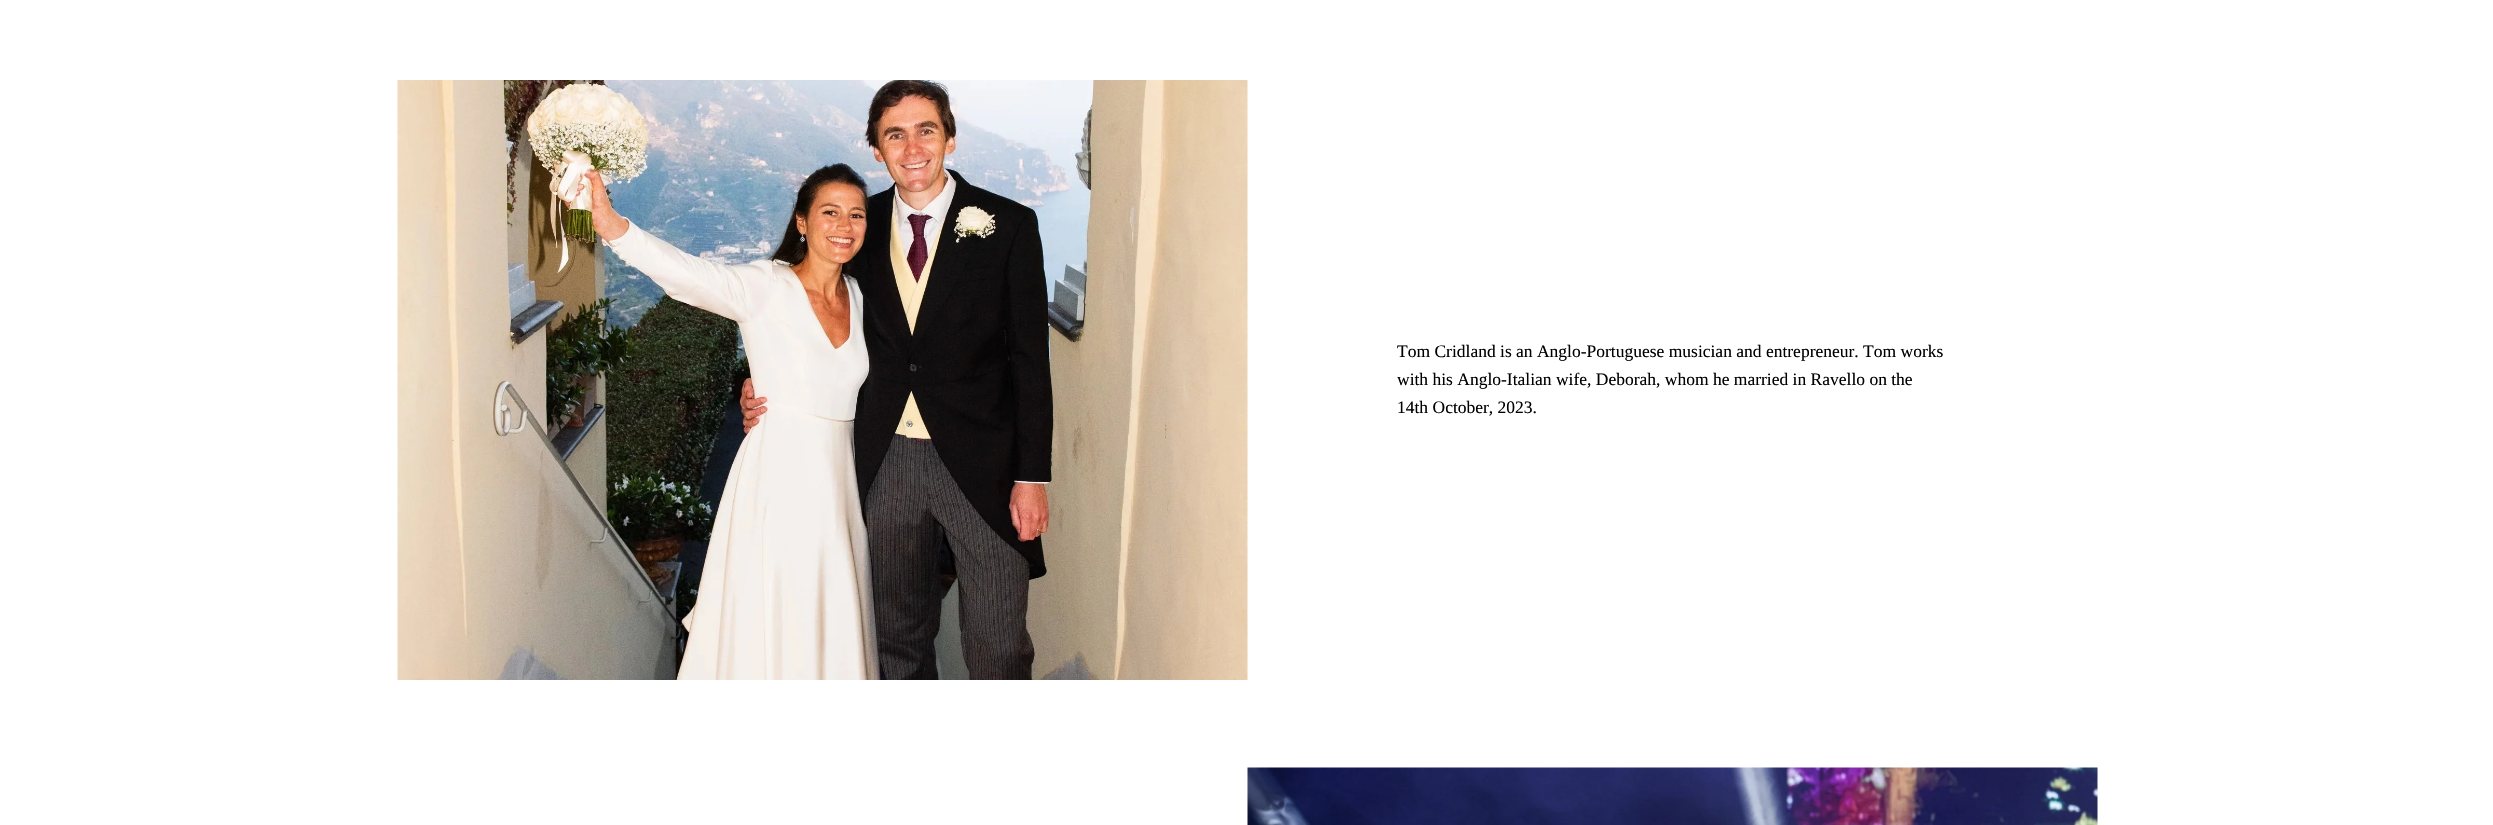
void draw(SkCanvas* canvas) {
    SkPaint paint;
    paint.setAntiAlias(true);
    auto face = [&](const char* family, int weight, float size, bool italic = false) {
        SkFontStyle style(weight, SkFontStyle::kNormal_Width,
            italic ? SkFontStyle::kItalic_Slant : SkFontStyle::kUpright_Slant);
        SkFont result(fontMgr->matchFamilyStyle(family, style), size);
        result.setSubpixel(true);
        return result;
    };
    auto write = [&](const char* s, float x, float y, const SkFont& font, SkColor color) {
        SkPaint ink(SkColor4f::FromColor(color));
        ink.setAntiAlias(true);
        canvas->drawString(s, x, y, font, ink);
    };
    auto paste = [&](const char* path, float x, float y, float w, float h) {
        auto image = SkImages::DeferredFromEncodedData(SkData::MakeFromFileName(path));
        canvas->drawImageRect(image, SkRect::MakeXYWH(x, y, w, h), SkSamplingOptions());
    };
    canvas->clear(SK_ColorWHITE);
    paste("pic1.png", 397, 80, 851, 600);
    auto kFont1 = face("Liberation Serif", 400, 17.5f);
    write("Tom Cridland is an Anglo-Portuguese musician and entrepreneur. Tom works", 1397, 357, kFont1, SK_ColorBLACK);
    write("with his Anglo-Italian wife, Deborah, whom he married in Ravello on the", 1397, 385, kFont1, SK_ColorBLACK);
    write("14th October, 2023.", 1397, 413, kFont1, SK_ColorBLACK);
    paste("pic2.png", 1247, 767, 851, 58);
}
